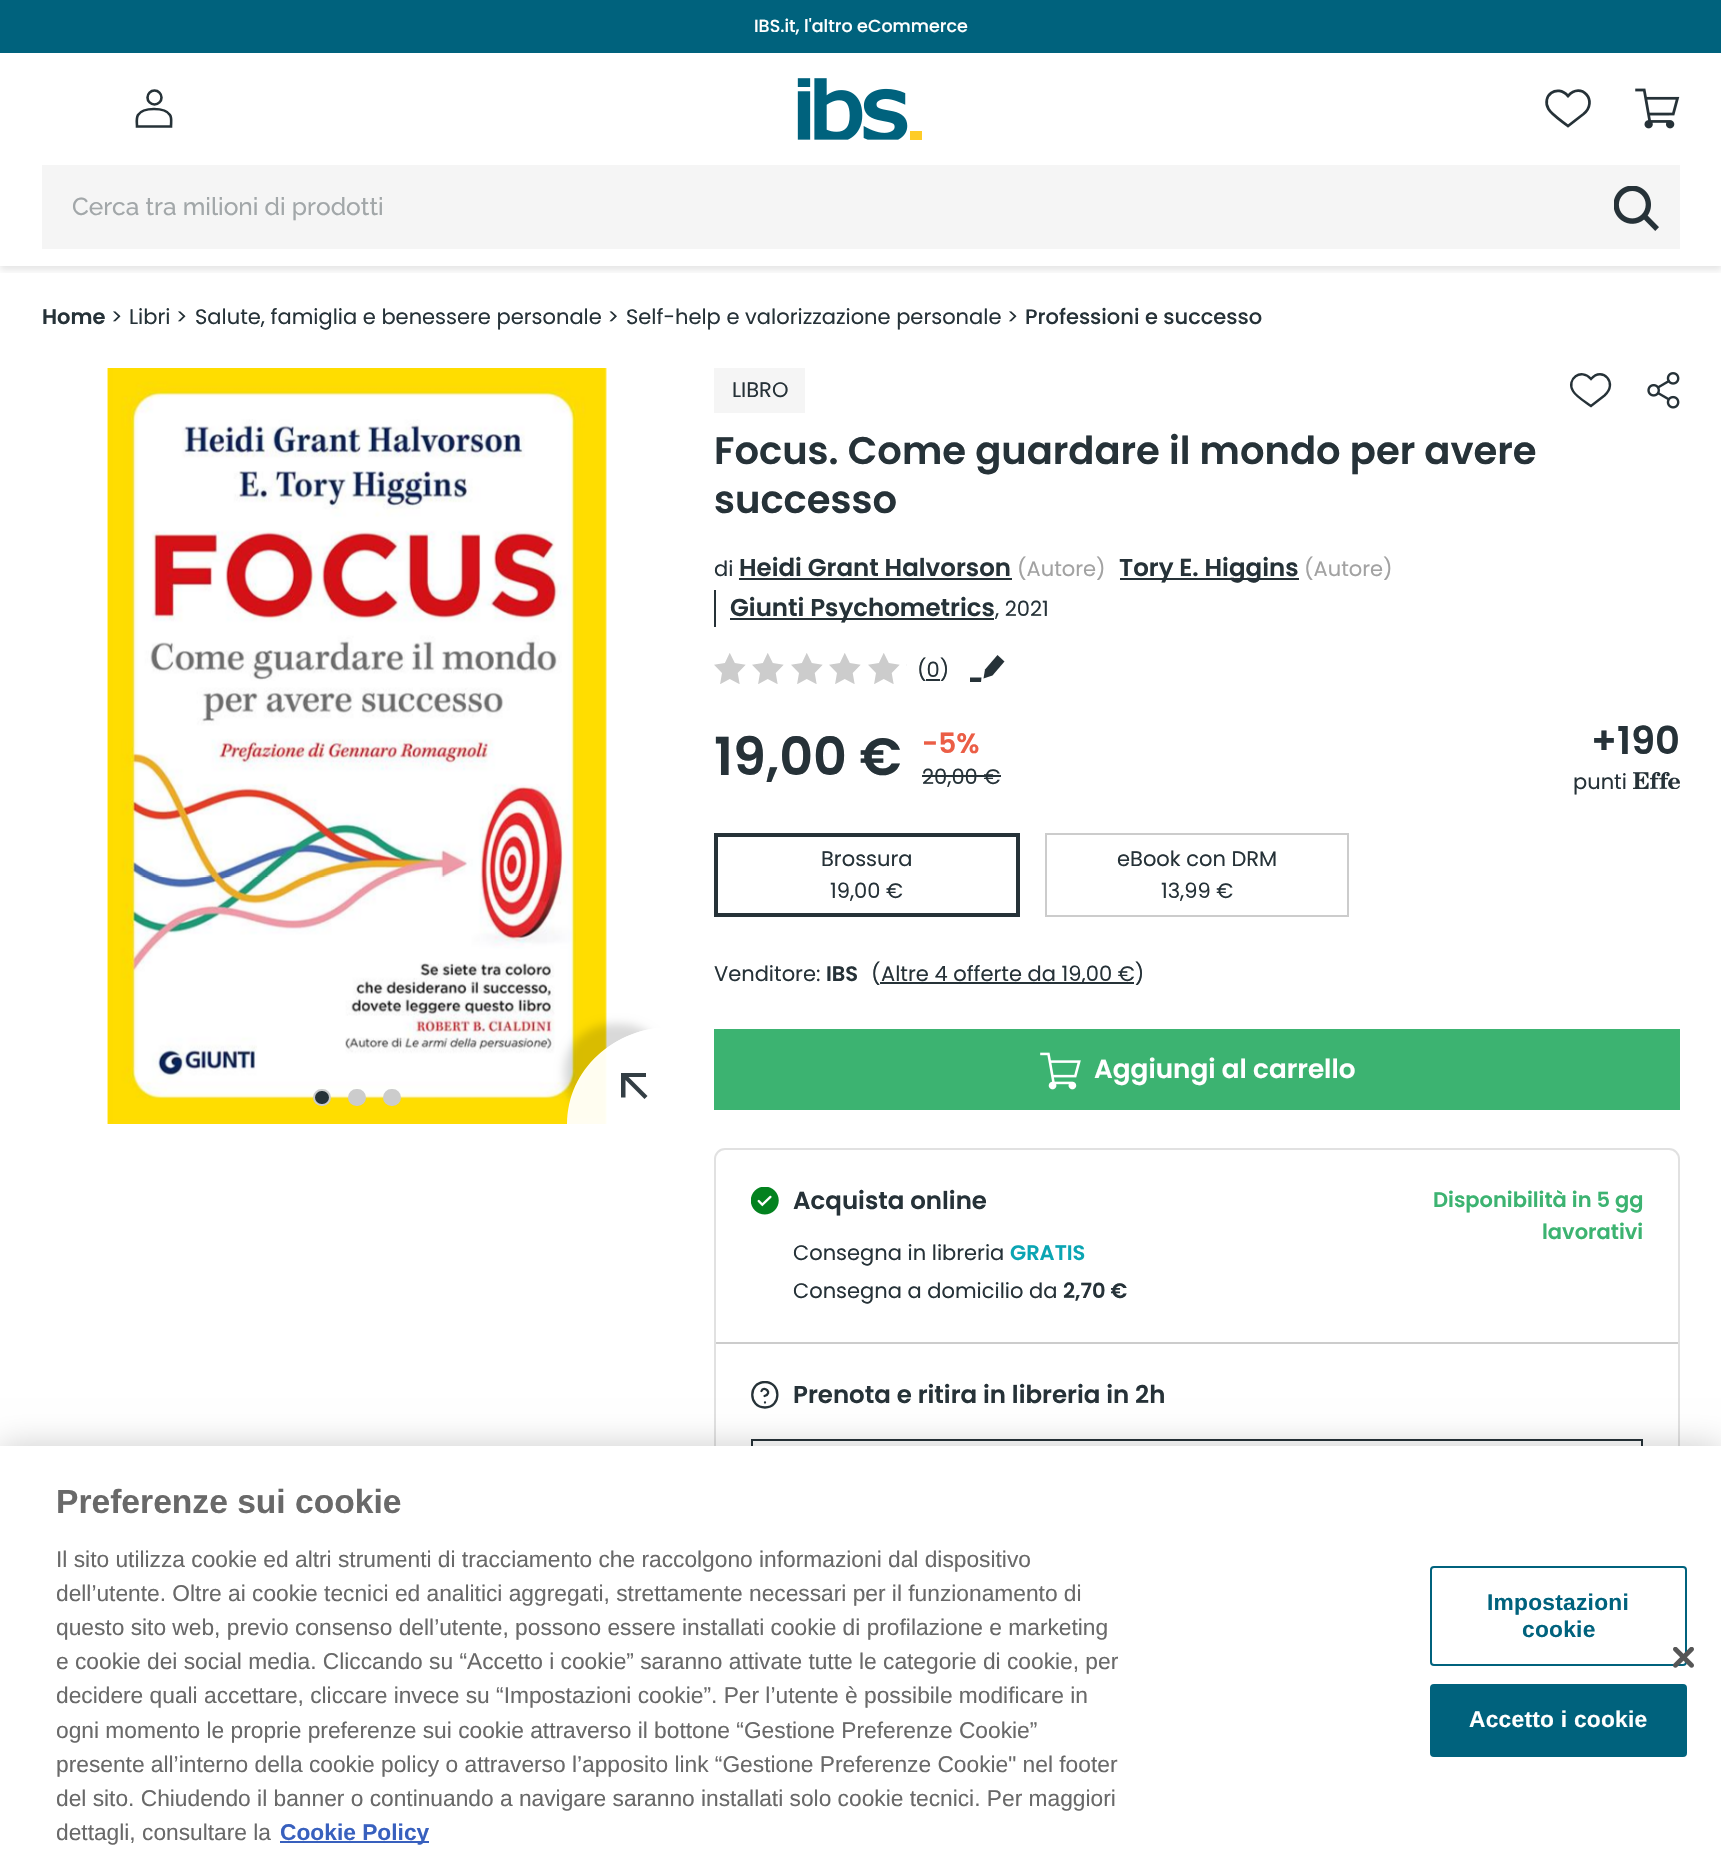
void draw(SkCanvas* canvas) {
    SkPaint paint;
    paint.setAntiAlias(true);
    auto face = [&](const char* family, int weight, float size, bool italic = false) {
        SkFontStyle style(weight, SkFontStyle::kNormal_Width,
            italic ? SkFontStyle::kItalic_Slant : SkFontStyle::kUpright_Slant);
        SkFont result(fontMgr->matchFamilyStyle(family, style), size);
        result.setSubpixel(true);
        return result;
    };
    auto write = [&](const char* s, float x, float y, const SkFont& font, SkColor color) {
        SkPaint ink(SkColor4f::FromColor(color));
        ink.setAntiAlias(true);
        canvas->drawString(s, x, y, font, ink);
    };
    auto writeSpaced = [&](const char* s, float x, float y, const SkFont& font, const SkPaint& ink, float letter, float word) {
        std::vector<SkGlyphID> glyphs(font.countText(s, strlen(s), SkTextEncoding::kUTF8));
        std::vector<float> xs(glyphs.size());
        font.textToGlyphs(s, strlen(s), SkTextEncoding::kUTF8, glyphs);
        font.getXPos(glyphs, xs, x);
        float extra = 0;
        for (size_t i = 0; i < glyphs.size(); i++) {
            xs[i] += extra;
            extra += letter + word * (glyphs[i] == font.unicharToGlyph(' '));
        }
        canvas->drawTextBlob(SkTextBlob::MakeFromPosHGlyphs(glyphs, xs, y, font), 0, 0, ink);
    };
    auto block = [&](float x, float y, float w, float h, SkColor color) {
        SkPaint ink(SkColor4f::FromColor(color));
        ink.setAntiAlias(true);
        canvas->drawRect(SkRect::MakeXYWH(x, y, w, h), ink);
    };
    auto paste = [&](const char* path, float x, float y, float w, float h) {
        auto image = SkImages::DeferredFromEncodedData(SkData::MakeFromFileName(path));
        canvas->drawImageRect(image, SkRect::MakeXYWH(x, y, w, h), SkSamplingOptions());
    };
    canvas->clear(SK_ColorWHITE);
    canvas->save();
    canvas->clipRect(SkRect::MakeXYWH(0, 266, 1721, 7));
    paint.setColor(SkColorSetARGB(26, 0, 0, 0));
    paint.setMaskFilter(SkMaskFilter::MakeBlur(kNormal_SkBlurStyle, 3.5f));
    canvas->drawRect(SkRect::MakeXYWH(0, 4, 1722, 266), paint);
    paint.setMaskFilter(nullptr);
    canvas->restore();
    block(0, 0, 1721, 53, SkColorSetRGB(0, 98, 125));
    auto kFont1 = face("Poppins", 500, 17.5f);
    write("IBS.it, l'altro eCommerce", 754, 32, kFont1, SK_ColorWHITE);
    paint.setStyle(SkPaint::kStroke_Style);
    paint.setStrokeWidth(2.6f);
    paint.setColor(SkColorSetRGB(38, 50, 56));
    canvas->drawCircle(154.5f, 97.5f, 7, paint);
    canvas->drawPath(SkPathBuilder().moveTo(137, 126.5f).cubicTo(137, 122.5f, 136, 118.5f, 138, 115).cubicTo(143, 107, 165, 107, 170, 115).cubicTo(172, 118, 171, 122.5f, 171, 126.5f).close().detach(), paint);
    paste("pic1.png", 797, 78, 125, 62);
    paint.setStrokeWidth(2.7f);
    canvas->drawPath(SkPathBuilder().moveTo(1568, 126).cubicTo(1562.5f, 121.5f, 1552, 115, 1548.5f, 109).cubicTo(1541, 96, 1557, 83.5f, 1568, 96).cubicTo(1581, 81, 1599, 101, 1583.5f, 114).close().detach(), paint);
    paste("pic2.png", 1635, 88, 45, 41);
    block(42, 165, 1638, 84, SkColorSetRGB(245, 245, 245));
    auto kFont2 = face("Raleway", 500, 24.5f);
    write("Cerca tra milioni di prodotti", 72, 215, kFont2, SkColorSetRGB(162, 167, 169));
    paste("pic3.png", 1614, 186, 45, 45);
    auto kFont3 = face("Poppins", 600, 21);
    write("Home", 42, 324, kFont3, SkColorSetRGB(38, 50, 56));
    auto kFont4 = face("Poppins", 400, 21);
    write(">", 111, 324, kFont4, SkColorSetRGB(38, 50, 56));
    write("Libri >", 129, 324, kFont4, SkColorSetRGB(38, 50, 56));
    write("Salute, famiglia e benessere personale >", 195, 324, kFont4, SkColorSetRGB(38, 50, 56));
    write("Self-help e valorizzazione personale >", 626, 324, kFont4, SkColorSetRGB(38, 50, 56));
    auto kFont5 = face("Poppins", 500, 21);
    write("Professioni e successo", 1025, 324, kFont5, SkColorSetRGB(38, 50, 56));
    paste("pic4.png", 107, 368, 500, 756);
    paint.setStyle(SkPaint::kFill_Style);
    canvas->drawRoundRect(SkRect::MakeXYWH(314, 1090, 16, 15), 7.5f, 7.5f, paint);
    paint.setStyle(SkPaint::kStroke_Style);
    paint.setStrokeWidth(2);
    paint.setColor(SkColorSetRGB(204, 204, 204));
    canvas->drawRoundRect(SkRect::MakeXYWH(314, 1090, 16, 15), 7.5f, 7.5f, paint);
    paint.setStyle(SkPaint::kFill_Style);
    canvas->drawRoundRect(SkRect::MakeXYWH(349, 1090, 16, 15), 7.5f, 7.5f, paint);
    paint.setStyle(SkPaint::kStroke_Style);
    canvas->drawRoundRect(SkRect::MakeXYWH(349, 1090, 16, 15), 7.5f, 7.5f, paint);
    paint.setStyle(SkPaint::kFill_Style);
    canvas->drawRoundRect(SkRect::MakeXYWH(384, 1090, 16, 15), 7.5f, 7.5f, paint);
    paint.setStyle(SkPaint::kStroke_Style);
    canvas->drawRoundRect(SkRect::MakeXYWH(384, 1090, 16, 15), 7.5f, 7.5f, paint);
    canvas->save();
    canvas->clipRect(SkRect::MakeXYWH(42, 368, 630, 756));
    canvas->clipPath(SkPathBuilder(SkPathFillType::kEvenOdd).moveTo(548, 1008).lineTo(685, 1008).lineTo(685, 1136).lineTo(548, 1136).close().moveTo(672, 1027).lineTo(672, 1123.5f).lineTo(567, 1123.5f).cubicTo(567, 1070.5f, 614, 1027, 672, 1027).close().detach(), true);
    paint.setStyle(SkPaint::kFill_Style);
    paint.setColor(SkColorSetARGB(38, 0, 0, 0));
    paint.setMaskFilter(SkMaskFilter::MakeBlur(kNormal_SkBlurStyle, 5));
    canvas->drawRoundRect(SkRect::MakeXYWH(564, 1024, 105, 96), 96, 96, paint);
    paint.setMaskFilter(nullptr);
    canvas->restore();
    paint.setColor(SkColorSetARGB(240, 255, 255, 255));
    canvas->drawPath(SkPathBuilder().moveTo(672, 1027).lineTo(672, 1124).lineTo(567, 1124).cubicTo(567, 1070, 614, 1027, 672, 1027).close().detach(), paint);
    paint.setColor(SkColorSetRGB(51, 62, 68));
    canvas->drawPath(SkPathBuilder().moveTo(646, 1073).lineTo(621, 1073).lineTo(621, 1097.5f).lineTo(625.5f, 1097.5f).lineTo(625.5f, 1080).lineTo(644.5f, 1099).lineTo(647.5f, 1096).lineTo(628.5f, 1077).lineTo(646, 1077).close().detach(), paint);
    block(714, 368, 91, 45, SkColorSetRGB(245, 245, 245));
    write("LIBRO", 732, 397, kFont4, SkColorSetRGB(38, 50, 56));
    paint.setStyle(SkPaint::kStroke_Style);
    paint.setStrokeWidth(2.4f);
    paint.setColor(SkColorSetRGB(38, 50, 56));
    canvas->drawPath(SkPathBuilder().moveTo(1591, 406).cubicTo(1585.5f, 402, 1576, 396.5f, 1573, 391).cubicTo(1566, 379, 1581, 367.5f, 1591, 379).cubicTo(1602.5f, 365.5f, 1618.5f, 383.5f, 1604.5f, 395.5f).close().detach(), paint);
    paste("pic5.png", 1647, 372, 33, 37);
    auto kFont6 = face("Poppins", 600, 38.5f);
    write("Focus. Come guardare il mondo per avere", 714, 464, kFont6, SkColorSetRGB(38, 50, 56));
    write("successo", 714, 513, kFont6, SkColorSetRGB(38, 50, 56));
    write("di", 714, 576, kFont4, SkColorSetRGB(38, 50, 56));
    auto kFont7 = face("Poppins", 600, 24.5f);
    write("Heidi Grant Halvorson", 739, 576, kFont7, SkColorSetRGB(38, 50, 56));
    block(739, 578, 273, 2, SkColorSetRGB(38, 50, 56));
    write("(Autore)", 1017, 576, kFont4, SkColorSetRGB(162, 162, 162));
    block(1120, 578, 179, 2, SkColorSetRGB(38, 50, 56));
    write("Tory E. Higgins", 1119, 576, kFont7, SkColorSetRGB(38, 50, 56));
    write("(Autore)", 1304, 576, kFont4, SkColorSetRGB(162, 162, 162));
    block(714, 590, 2, 37, SkColorSetRGB(38, 50, 56));
    block(730, 618, 264, 2, SkColorSetRGB(38, 50, 56));
    write("Giunti Psychometrics", 730, 616, kFont7, SkColorSetRGB(38, 50, 56));
    write(", 2021", 995, 616, kFont4, SkColorSetRGB(38, 50, 56));
    paste("pic6.png", 714, 653, 193, 31);
    write("(0)", 917, 677, kFont4, SkColorSetRGB(38, 50, 56));
    block(926, 679, 14, 2, SkColorSetRGB(38, 50, 56));
    paint.setStyle(SkPaint::kFill_Style);
    canvas->drawPath(SkPathBuilder().moveTo(997.5f, 655).lineTo(985, 669.5f).lineTo(983.5f, 678.5f).lineTo(992.5f, 675.5f).lineTo(1004.5f, 661.5f).close().detach(), paint);
    canvas->save();
    canvas->clipRect(SkRect::MakeXYWH(970, 651, 35, 35));
    canvas->drawPath(SkPathBuilder().moveTo(969.5f, 682).lineTo(981, 682).lineTo(981.5f, 677.5f).lineTo(969.5f, 677.5f).close().detach(), paint);
    canvas->restore();
    auto kFont8 = face("Poppins", 600, 52.5f);
    write("19,00 €", 714, 775, kFont8, SkColorSetRGB(38, 50, 56));
    auto kFont9 = face("Poppins", 600, 28);
    write("-5%", 922, 753, kFont9, SkColorSetRGB(235, 94, 70));
    write("20,00 €", 922, 784, kFont4, SkColorSetRGB(38, 50, 56));
    block(922, 775, 79, 2, SkColorSetRGB(38, 50, 56));
    write("+190", 1591, 754, kFont6, SkColorSetRGB(38, 50, 56));
    write("punti", 1573, 789, kFont4, SkColorSetRGB(38, 50, 56));
    paste("pic7.png", 1633, 772, 47, 17);
    paint.setStyle(SkPaint::kStroke_Style);
    paint.setStrokeWidth(4);
    canvas->drawRect(SkRect::MakeXYWH(716, 835, 302, 80), paint);
    write("Brossura", 821, 866, kFont4, SkColorSetRGB(38, 50, 56));
    write("19,00 €", 830, 898, kFont4, SkColorSetRGB(38, 50, 56));
    paint.setStrokeWidth(2);
    paint.setColor(SkColorSetRGB(204, 204, 204));
    canvas->drawRect(SkRect::MakeXYWH(1046, 834, 302, 82), paint);
    write("eBook con DRM", 1117, 866, kFont4, SkColorSetRGB(38, 50, 56));
    write("13,99 €", 1161, 898, kFont4, SkColorSetRGB(38, 50, 56));
    write("Venditore:", 714, 981, kFont4, SkColorSetRGB(38, 50, 56));
    write("IBS", 826, 981, kFont3, SkColorSetRGB(38, 50, 56));
    write("(", 871, 981, kFont4, SkColorSetRGB(38, 50, 56));
    block(880, 982, 254, 2, SkColorSetRGB(38, 50, 56));
    write("Altre 4 offerte da 19,00 €)", 881, 981, kFont4, SkColorSetRGB(38, 50, 56));
    block(714, 1029, 966, 81, SkColorSetRGB(60, 179, 113));
    paste("pic8.png", 1040, 1052, 41, 38);
    auto kFont10 = face("Poppins", 600, 26.25f);
    write("Aggiungi al carrello", 1094, 1078, kFont10, SK_ColorWHITE);
    paint.setColor(SkColorSetRGB(225, 225, 225));
    canvas->drawRoundRect(SkRect::MakeXYWH(715, 1149, 964, 388), 10, 10, paint);
    block(716, 1342, 962, 2, SkColorSetRGB(204, 204, 204));
    paste("pic9.png", 751, 1187, 28, 28);
    write("Acquista online", 793, 1209, kFont7, SkColorSetRGB(38, 50, 56));
    write("Consegna in libreria", 793, 1260, kFont4, SkColorSetRGB(38, 50, 56));
    write("GRATIS", 1010, 1260, kFont3, SkColorSetRGB(10, 165, 179));
    write("Consegna a domicilio da", 793, 1298, kFont4, SkColorSetRGB(38, 50, 56));
    write("2,70 €", 1063, 1298, kFont3, SkColorSetRGB(38, 50, 56));
    write("Disponibilità in 5 gg", 1433, 1207, kFont3, SkColorSetRGB(60, 179, 113));
    write("lavorativi", 1542, 1239, kFont3, SkColorSetRGB(60, 179, 113));
    canvas->save();
    canvas->clipRect(SkRect::MakeXYWH(751, 1381, 28, 28));
    paint.setStrokeWidth(2.3f);
    paint.setStrokeCap(SkPaint::kRound_Cap);
    paint.setStrokeJoin(SkPaint::kRound_Join);
    paint.setColor(SkColorSetRGB(38, 50, 56));
    canvas->drawPath(SkPathBuilder().moveTo(765, 1382).cubicTo(781.5f, 1382, 781.5f, 1407.5f, 765, 1407.5f).cubicTo(748, 1407.5f, 748, 1382, 765, 1382).close().detach(), paint);
    canvas->restore();
    canvas->drawPath(SkPathBuilder().moveTo(761.5f, 1391).cubicTo(763.5f, 1385, 773.5f, 1393, 764.5f, 1396).moveTo(765, 1402.5f).lineTo(765, 1402.5f).detach(), paint);
    write("Prenota e ritira in libreria in 2h", 793, 1403, kFont7, SkColorSetRGB(38, 50, 56));
    paint.setStrokeWidth(2);
    paint.setStrokeCap(SkPaint::kButt_Cap);
    paint.setStrokeJoin(SkPaint::kMiter_Join);
    canvas->drawRect(SkRect::MakeXYWH(752, 1440, 890, 61), paint);
    paint.setStyle(SkPaint::kFill_Style);
    paint.setColor(SkColorSetARGB(51, 0, 0, 0));
    paint.setMaskFilter(SkMaskFilter::MakeBlur(kNormal_SkBlurStyle, 16));
    canvas->drawRect(SkRect::MakeXYWH(0, 1446, 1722, 421), paint);
    paint.setMaskFilter(nullptr);
    block(0, 1446, 1721, 421, SK_ColorWHITE);
    auto kFont11 = face("Liberation Sans", 700, 33.6f);
    write("Preferenze sui cookie", 56, 1513, kFont11, SkColorSetRGB(105, 105, 105));
    auto kFont12 = face("Liberation Sans", 400, 22.75f);
    write("Il sito utilizza cookie ed altri strumenti di tracciamento che raccolgono informazioni dal dispositivo", 56, 1567, kFont12, SkColorSetRGB(105, 105, 105));
    write("dell’utente. Oltre ai cookie tecnici ed analitici aggregati, strettamente necessari per il funzionamento di", 56, 1601, kFont12, SkColorSetRGB(105, 105, 105));
    write("questo sito web, previo consenso dell’utente, possono essere installati cookie di profilazione e marketing", 56, 1635, kFont12, SkColorSetRGB(105, 105, 105));
    write("e cookie dei social media. Cliccando su “Accetto i cookie” saranno attivate tutte le categorie di cookie, per", 56, 1669, kFont12, SkColorSetRGB(105, 105, 105));
    write("decidere quali accettare, cliccare invece su “Impostazioni cookie”. Per l’utente è possibile modificare in", 56, 1703, kFont12, SkColorSetRGB(105, 105, 105));
    write("ogni momento le proprie preferenze sui cookie attraverso il bottone “Gestione Preferenze Cookie”", 56, 1738, kFont12, SkColorSetRGB(105, 105, 105));
    write("presente all’interno della cookie policy o attraverso l’apposito link “Gestione Preferenze Cookie\" nel footer", 56, 1772, kFont12, SkColorSetRGB(105, 105, 105));
    write("del sito. Chiudendo il banner o continuando a navigare saranno installati solo cookie tecnici. Per maggiori", 56, 1806, kFont12, SkColorSetRGB(105, 105, 105));
    write("dettagli, consultare la", 56, 1840, kFont12, SkColorSetRGB(105, 105, 105));
    block(280, 1841, 149, 2, SkColorSetRGB(56, 96, 190));
    auto kFont13 = face("Liberation Sans", 700, 22.75f);
    write("Cookie Policy", 280, 1840, kFont13, SkColorSetRGB(56, 96, 190));
    paint.setStyle(SkPaint::kStroke_Style);
    paint.setColor(SkColorSetRGB(0, 98, 125));
    canvas->drawRoundRect(SkRect::MakeXYWH(1431, 1567, 255, 98), 3, 3, paint);
    paint.setStyle(SkPaint::kFill_Style);
    writeSpaced("Impostazioni", 1487, 1610, kFont13, paint, 0.25f, 0);
    writeSpaced("cookie", 1522, 1637, kFont13, paint, 0.25f, 0);
    canvas->drawRoundRect(SkRect::MakeXYWH(1431, 1685, 255, 71), 3, 3, paint);
    paint.setStyle(SkPaint::kStroke_Style);
    canvas->drawRoundRect(SkRect::MakeXYWH(1431, 1685, 255, 71), 3, 3, paint);
    paint.setStyle(SkPaint::kFill_Style);
    paint.setColor(SK_ColorWHITE);
    writeSpaced("Accetto i cookie", 1469, 1727, kFont13, paint, 0.25f, 0);
    paste("pic10.png", 1673, 1647, 21, 21);
}
